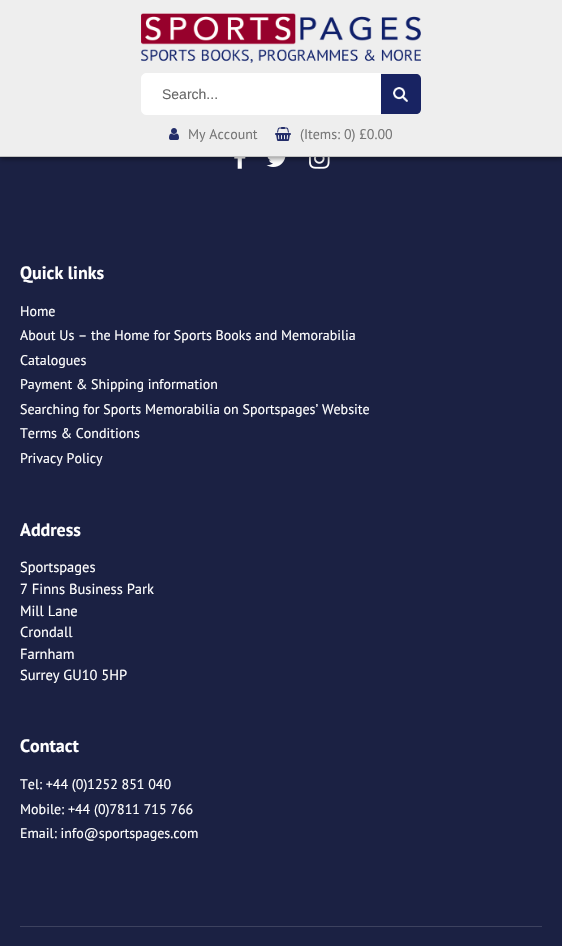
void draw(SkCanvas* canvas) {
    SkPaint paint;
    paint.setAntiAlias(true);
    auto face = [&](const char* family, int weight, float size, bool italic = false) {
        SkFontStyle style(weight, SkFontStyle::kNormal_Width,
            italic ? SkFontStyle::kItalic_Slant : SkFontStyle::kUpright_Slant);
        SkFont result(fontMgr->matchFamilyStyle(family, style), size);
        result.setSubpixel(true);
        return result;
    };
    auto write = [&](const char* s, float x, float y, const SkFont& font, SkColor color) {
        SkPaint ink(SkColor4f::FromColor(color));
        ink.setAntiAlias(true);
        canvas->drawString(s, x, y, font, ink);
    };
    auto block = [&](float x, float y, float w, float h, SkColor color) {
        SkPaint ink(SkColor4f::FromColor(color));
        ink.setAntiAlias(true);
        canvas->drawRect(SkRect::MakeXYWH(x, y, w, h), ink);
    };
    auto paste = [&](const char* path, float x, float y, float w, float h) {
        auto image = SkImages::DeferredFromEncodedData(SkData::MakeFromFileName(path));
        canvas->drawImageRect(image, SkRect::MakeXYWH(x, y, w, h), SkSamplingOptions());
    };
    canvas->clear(SkColorSetRGB(27, 33, 67));
    paste("pic5.png", 234, 157, 12, 12);
    paste("pic6.png", 266, 157, 20, 10);
    paste("pic7.png", 309, 157, 21, 12);
    paint.setColor(SkColorSetARGB(102, 0, 0, 0));
    paint.setMaskFilter(SkMaskFilter::MakeBlur(kNormal_SkBlurStyle, 2.5f));
    canvas->drawRect(SkRect::MakeXYWH(0, 2, 562, 157), paint);
    paint.setMaskFilter(nullptr);
    block(0, 0, 562, 156, SkColorSetRGB(238, 238, 238));
    block(0, 156, 562, 1, SkColorSetRGB(192, 192, 192));
    paste("pic1.png", 141, 13, 280, 50);
    paint.setColor(SK_ColorWHITE);
    canvas->drawPath(SkPathBuilder().moveTo(146, 73.5f).lineTo(380.5f, 73.5f).lineTo(380.5f, 114.5f).lineTo(146, 114.5f).cubicTo(143.5f, 114.5f, 141.5f, 112.5f, 141.5f, 110).lineTo(141.5f, 78).cubicTo(141.5f, 75.5f, 143.5f, 73.5f, 146, 73.5f).close().detach(), paint);
    paint.setStyle(SkPaint::kStroke_Style);
    paint.setStrokeWidth(1);
    canvas->drawPath(SkPathBuilder().moveTo(146, 73.5f).lineTo(380.5f, 73.5f).lineTo(380.5f, 114.5f).lineTo(146, 114.5f).cubicTo(143.5f, 114.5f, 141.5f, 112.5f, 141.5f, 110).lineTo(141.5f, 78).cubicTo(141.5f, 75.5f, 143.5f, 73.5f, 146, 73.5f).close().detach(), paint);
    auto kFont1 = face("Liberation Sans", 400, 14);
    write("Search...", 162, 99, kFont1, SkColorSetRGB(102, 102, 102));
    paint.setStyle(SkPaint::kFill_Style);
    paint.setColor(SkColorSetRGB(24, 35, 98));
    canvas->drawPath(SkPathBuilder().moveTo(381, 74).lineTo(416, 74).cubicTo(419, 74, 421, 76, 421, 79).lineTo(421, 109).cubicTo(421, 112, 419, 114, 416, 114).lineTo(381, 114).close().detach(), paint);
    paste("pic2.png", 393, 87, 15, 15);
    paste("pic3.png", 169, 128, 10, 12);
    auto kFont2 = face("PT Sans", 400, 14);
    write("My Account", 188, 139, kFont2, SkColorSetRGB(119, 119, 119));
    paste("pic4.png", 275, 127, 16, 14);
    write("(Items: 0) £0.00", 300, 139, kFont2, SkColorSetRGB(119, 119, 119));
    auto kFont3 = face("PT Sans", 700, 18);
    write("Quick links", 20, 279, kFont3, SK_ColorWHITE);
    write("Home", 20, 316, kFont2, SK_ColorWHITE);
    write("About Us – the Home for Sports Books and Memorabilia", 20, 340, kFont2, SK_ColorWHITE);
    write("Catalogues", 20, 365, kFont2, SK_ColorWHITE);
    write("Payment & Shipping information", 20, 389, kFont2, SK_ColorWHITE);
    write("Searching for Sports Memorabilia on Sportspages’ Website", 20, 414, kFont2, SK_ColorWHITE);
    write("Terms & Conditions", 20, 438, kFont2, SK_ColorWHITE);
    write("Privacy Policy", 20, 463, kFont2, SK_ColorWHITE);
    write("Address", 20, 536, kFont3, SK_ColorWHITE);
    auto kFont4 = face("PT Sans", 400, 14.5f);
    write("Sportspages", 20, 572, kFont4, SK_ColorWHITE);
    write("7 Finns Business Park", 20, 594, kFont4, SK_ColorWHITE);
    write("Mill Lane", 20, 616, kFont4, SK_ColorWHITE);
    write("Crondall", 20, 637, kFont4, SK_ColorWHITE);
    write("Farnham", 20, 659, kFont4, SK_ColorWHITE);
    write("Surrey GU10 5HP", 20, 680, kFont4, SK_ColorWHITE);
    write("Contact", 20, 752, kFont3, SK_ColorWHITE);
    write("Tel: +44 (0)1252 851 040", 20, 789, kFont2, SK_ColorWHITE);
    write("Mobile: +44 (0)7811 715 766", 20, 814, kFont2, SK_ColorWHITE);
    write("Email: info@sportspages.com", 20, 838, kFont2, SK_ColorWHITE);
    block(20, 926, 522, 1, SkColorSetRGB(61, 66, 95));
}
